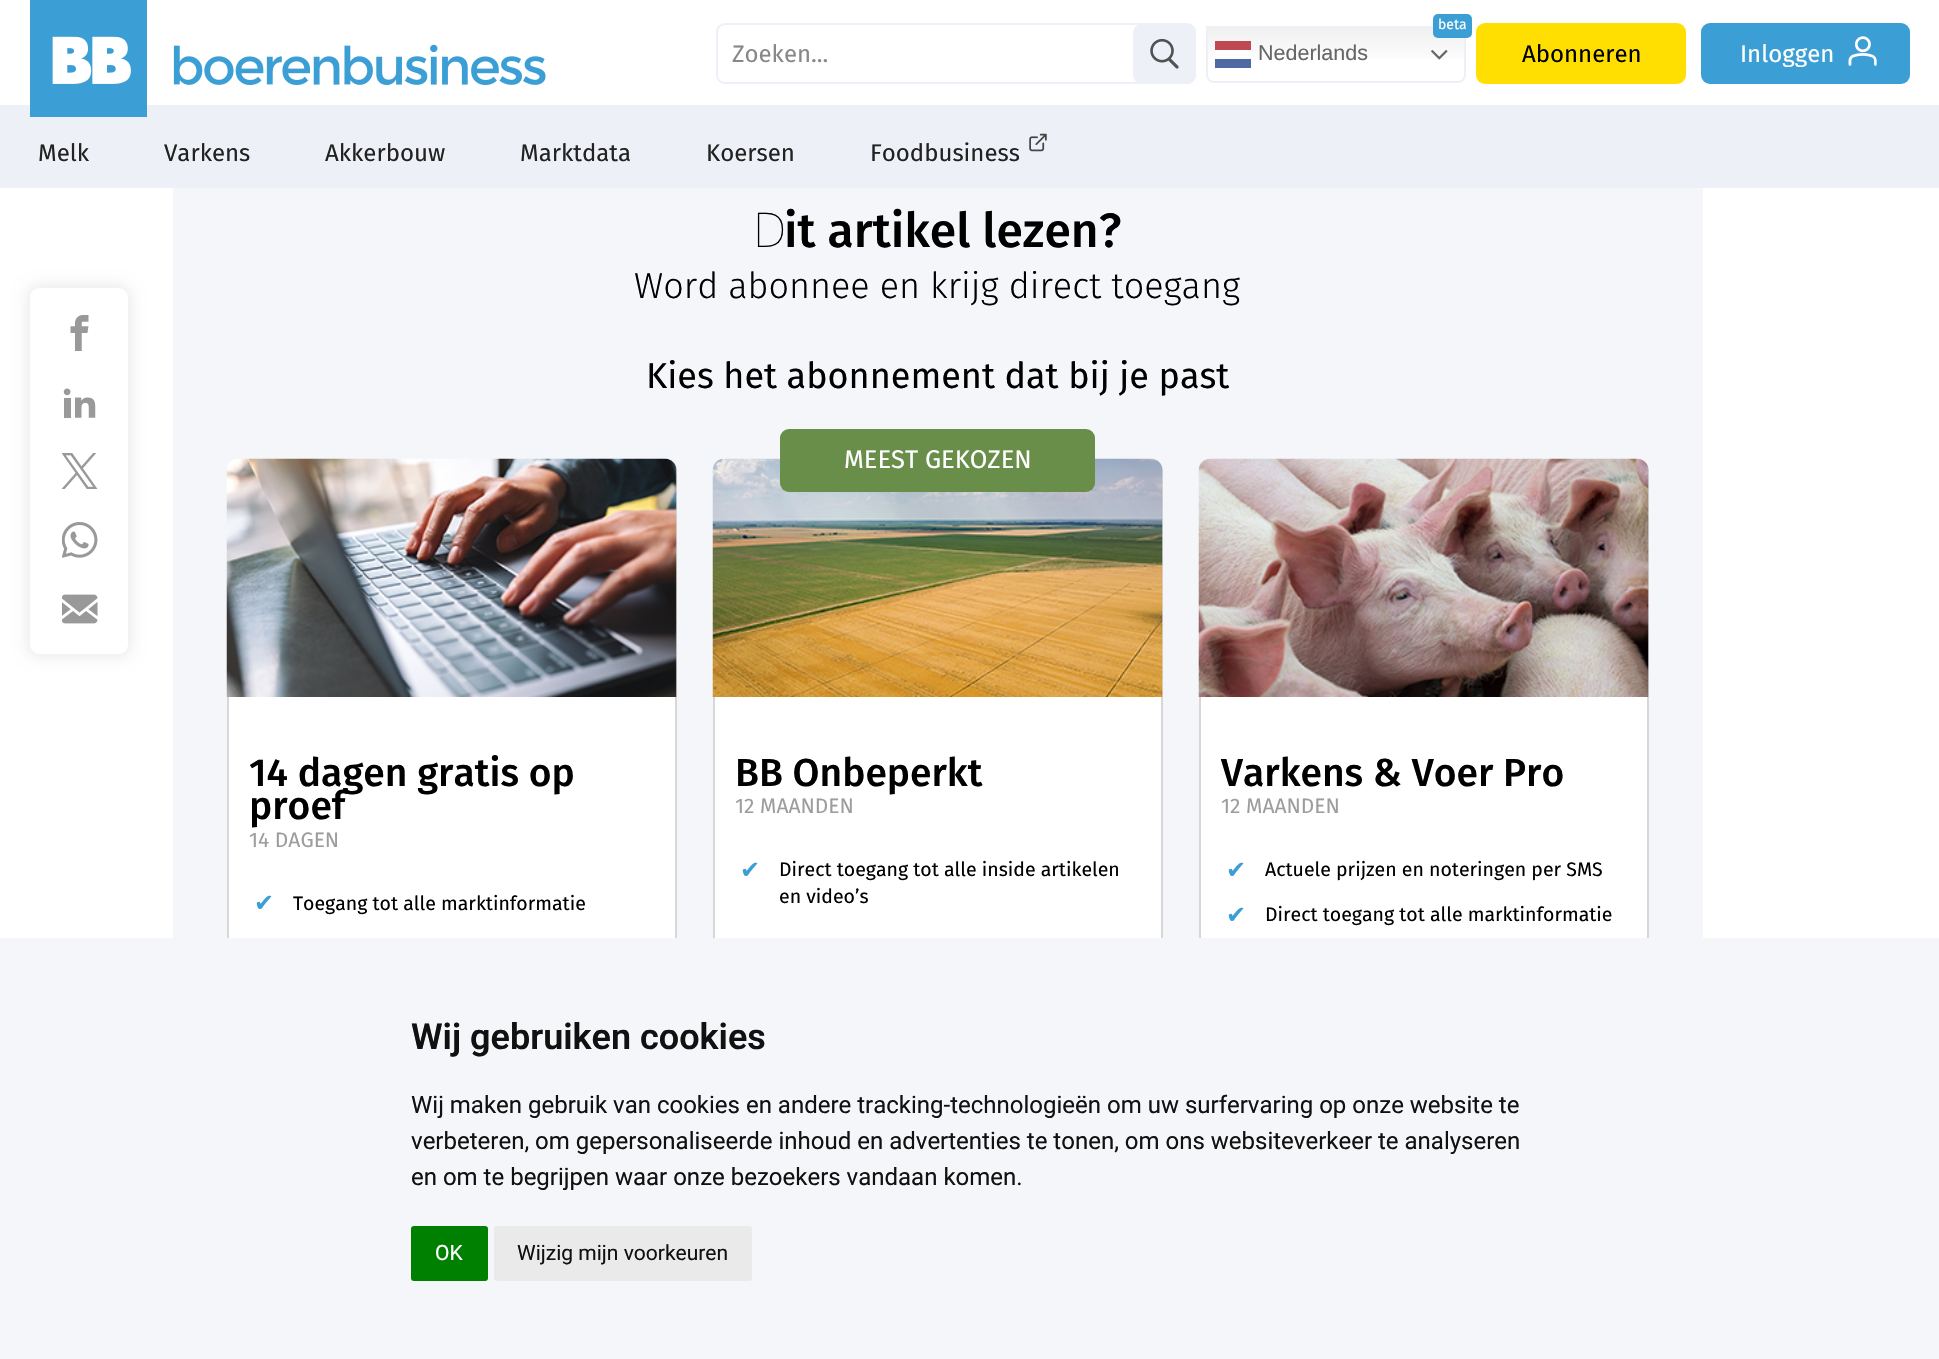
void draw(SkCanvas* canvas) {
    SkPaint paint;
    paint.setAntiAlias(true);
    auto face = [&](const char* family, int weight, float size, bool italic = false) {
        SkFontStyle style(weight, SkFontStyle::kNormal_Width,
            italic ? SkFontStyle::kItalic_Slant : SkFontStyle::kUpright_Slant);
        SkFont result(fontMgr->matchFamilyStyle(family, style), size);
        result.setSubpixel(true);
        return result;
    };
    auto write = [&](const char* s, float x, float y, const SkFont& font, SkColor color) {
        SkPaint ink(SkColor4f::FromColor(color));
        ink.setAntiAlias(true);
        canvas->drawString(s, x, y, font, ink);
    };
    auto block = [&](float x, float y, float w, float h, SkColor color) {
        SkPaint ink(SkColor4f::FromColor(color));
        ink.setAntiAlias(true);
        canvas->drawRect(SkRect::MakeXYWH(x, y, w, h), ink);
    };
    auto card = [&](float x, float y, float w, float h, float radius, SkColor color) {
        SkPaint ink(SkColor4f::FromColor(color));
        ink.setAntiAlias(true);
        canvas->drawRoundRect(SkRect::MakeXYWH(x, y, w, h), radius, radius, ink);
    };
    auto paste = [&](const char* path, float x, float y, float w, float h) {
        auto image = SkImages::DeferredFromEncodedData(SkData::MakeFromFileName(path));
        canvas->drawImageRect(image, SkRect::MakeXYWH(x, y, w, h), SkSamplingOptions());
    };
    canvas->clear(SK_ColorWHITE);
    block(0, 105, 1939, 83, SkColorSetRGB(238, 240, 247));
    block(30, 0, 117, 117, SkColorSetRGB(59, 158, 212));
    paste("pic1.png", 52, 36, 79, 48);
    paste("pic2.png", 173, 44, 373, 41);
    paint.setStyle(SkPaint::kStroke_Style);
    paint.setStrokeWidth(2);
    paint.setColor(SkColorSetRGB(238, 240, 247));
    canvas->drawRoundRect(SkRect::MakeXYWH(717, 24, 478, 59), 8, 8, paint);
    auto kFont1 = face("Fira Sans", 400, 24);
    write("Zoeken...", 732, 62, kFont1, SkColorSetRGB(136, 136, 136));
    card(1133, 24, 63, 60, 9, SkColorSetRGB(238, 240, 247));
    paste("pic3.png", 1150, 38, 29, 31);
    paint.setStyle(SkPaint::kFill_Style);
    {
        const SkColor colors[] = {SkColorSetRGB(239, 239, 239), SK_ColorWHITE};
        const float stops[] = {0, 0.7f};
        const SkPoint ends[] = {{1336, 25}, {1336, 83}};
        paint.setShader(SkGradientShader::MakeLinear(ends, colors, stops, 2, SkTileMode::kClamp));
        paint.setAlpha(255);
    }
    canvas->drawRect(SkRect::MakeXYWH(1206, 26, 260, 33), paint);
    {
        const SkColor colors[] = {SkColorSetRGB(252, 252, 252), SK_ColorWHITE};
        const float stops[] = {0, 0.7f};
        const SkPoint ends[] = {{1336, 25}, {1336, 83}};
        paint.setShader(SkGradientShader::MakeLinear(ends, colors, stops, 2, SkTileMode::kClamp));
        paint.setAlpha(255);
    }
    canvas->drawRect(SkRect::MakeXYWH(1215, 50, 36, 7), paint);
    paint.setStyle(SkPaint::kStroke_Style);
    paint.setShader(nullptr);
    paint.setColor(SkColorSetRGB(238, 240, 247));
    canvas->drawRoundRect(SkRect::MakeXYWH(1207, 27, 258, 55), 7, 7, paint);
    card(1433, 14, 39, 24, 5, SkColorSetRGB(59, 158, 212));
    auto kFont2 = face("Fira Sans", 400, 14);
    write("beta", 1438, 29, kFont2, SK_ColorWHITE);
    block(1215, 41, 36, 9, SkColorSetRGB(190, 73, 83));
    auto kFont3 = face("Liberation Sans", 400, 21.5f);
    write("Nederlands", 1258, 60, kFont3, SkColorSetRGB(102, 102, 102));
    paste("pic4.png", 1431, 50, 17, 10);
    block(1215, 59, 36, 9, SkColorSetRGB(77, 107, 162));
    card(1476, 23, 210, 61, 9, SkColorSetRGB(255, 223, 2));
    write("Abonneren", 1522, 62, kFont1, SK_ColorBLACK);
    card(1701, 23, 209, 61, 9, SkColorSetRGB(59, 158, 212));
    write("Inloggen", 1740, 62, kFont1, SK_ColorWHITE);
    paste("pic5.png", 1848, 36, 29, 30);
    write("Melk", 38, 161, kFont1, SkColorSetRGB(34, 34, 34));
    write("Varkens", 164, 161, kFont1, SkColorSetRGB(34, 34, 34));
    write("Akkerbouw", 325, 161, kFont1, SkColorSetRGB(34, 34, 34));
    write("Marktdata", 520, 161, kFont1, SkColorSetRGB(34, 34, 34));
    write("Koersen", 706, 161, kFont1, SkColorSetRGB(34, 34, 34));
    write("Foodbusiness", 870, 161, kFont1, SkColorSetRGB(34, 34, 34));
    paste("pic6.png", 1029, 133, 18, 19);
    paint.setStyle(SkPaint::kFill_Style);
    paint.setColor(SkColorSetARGB(20, 0, 0, 0));
    paint.setMaskFilter(SkMaskFilter::MakeBlur(kNormal_SkBlurStyle, 7));
    canvas->drawRoundRect(SkRect::MakeXYWH(27, 285, 104, 372), 12, 12, paint);
    paint.setMaskFilter(nullptr);
    card(30, 288, 98, 366, 9, SK_ColorWHITE);
    paste("pic7.png", 70, 315, 19, 36);
    paste("pic8.png", 63, 388, 33, 30);
    paste("pic9.png", 62, 453, 36, 36);
    paste("pic10.png", 62, 522, 36, 36);
    paste("pic11.png", 62, 594, 36, 30);
    block(173, 188, 1530, 750, SkColorSetRGB(245, 246, 249));
    auto kFont4 = face("Noto Sans", 100, 48);
    write("D", 753, 247, kFont4, SK_ColorBLACK);
    auto kFont5 = face("Fira Sans", 500, 48);
    write("it artikel lezen?", 784, 247, kFont5, SK_ColorBLACK);
    auto kFont6 = face("Fira Sans", 300, 36);
    write("Word abonnee en krijg direct toegang", 634, 298, kFont6, SK_ColorBLACK);
    auto kFont7 = face("Fira Sans", 400, 36);
    write("Kies het abonnement dat bij je past", 646, 388, kFont7, SK_ColorBLACK);
    paint.setColor(SK_ColorWHITE);
    canvas->drawRoundRect(SkRect::MakeXYWH(228, 460, 448, 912), 11, 11, paint);
    paint.setStyle(SkPaint::kStroke_Style);
    paint.setColor(SkColorSetRGB(215, 215, 215));
    canvas->drawRoundRect(SkRect::MakeXYWH(228, 460, 448, 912), 11, 11, paint);
    paste("pic12.png", 226, 458, 451, 239);
    auto kFont8 = face("Fira Sans", 500, 39);
    write("14 dagen gratis op", 249, 786, kFont8, SK_ColorBLACK);
    write("proef", 249, 819, kFont8, SK_ColorBLACK);
    auto kFont9 = face("Fira Sans", 400, 21);
    write("14 DAGEN", 249, 847, kFont9, SkColorSetRGB(157, 157, 157));
    auto kFont10 = face("DejaVu Sans", 400, 24);
    write("✔", 254, 911, kFont10, SkColorSetRGB(59, 158, 212));
    auto kFont11 = face("Fira Sans", 400, 19.5f);
    write("Toegang tot alle marktinformatie", 293, 910, kFont11, SK_ColorBLACK);
    paint.setStyle(SkPaint::kFill_Style);
    paint.setColor(SK_ColorWHITE);
    canvas->drawRoundRect(SkRect::MakeXYWH(714, 460, 448, 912), 11, 11, paint);
    paint.setStyle(SkPaint::kStroke_Style);
    paint.setColor(SkColorSetRGB(215, 215, 215));
    canvas->drawRoundRect(SkRect::MakeXYWH(714, 460, 448, 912), 11, 11, paint);
    paste("pic13.png", 712, 458, 451, 239);
    card(780, 429, 315, 63, 9, SkColorSetRGB(104, 142, 73));
    auto kFont12 = face("Fira Sans", 400, 25.5f);
    write("MEEST GEKOZEN", 844, 468, kFont12, SK_ColorWHITE);
    write("BB Onbeperkt", 735, 786, kFont8, SK_ColorBLACK);
    write("12 MAANDEN", 735, 813, kFont9, SkColorSetRGB(157, 157, 157));
    write("✔", 740, 878, kFont10, SkColorSetRGB(59, 158, 212));
    write("Direct toegang tot alle inside artikelen", 779, 876, kFont11, SK_ColorBLACK);
    write("en video’s", 779, 903, kFont11, SK_ColorBLACK);
    paint.setStyle(SkPaint::kFill_Style);
    paint.setColor(SK_ColorWHITE);
    canvas->drawRoundRect(SkRect::MakeXYWH(1200, 460, 448, 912), 11, 11, paint);
    paint.setStyle(SkPaint::kStroke_Style);
    paint.setColor(SkColorSetRGB(215, 215, 215));
    canvas->drawRoundRect(SkRect::MakeXYWH(1200, 460, 448, 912), 11, 11, paint);
    paste("pic14.png", 1198, 458, 451, 239);
    write("Varkens & Voer Pro", 1221, 786, kFont8, SK_ColorBLACK);
    write("12 MAANDEN", 1221, 813, kFont9, SkColorSetRGB(157, 157, 157));
    write("✔", 1226, 878, kFont10, SkColorSetRGB(59, 158, 212));
    write("Actuele prijzen en noteringen per SMS", 1265, 876, kFont11, SK_ColorBLACK);
    write("✔", 1226, 923, kFont10, SkColorSetRGB(59, 158, 212));
    write("Direct toegang tot alle marktinformatie", 1265, 921, kFont11, SK_ColorBLACK);
    block(0, 938, 1939, 421, SkColorSetRGB(245, 246, 249));
    auto kFont13 = face("Roboto", 600, 36);
    write("Wij gebruiken cookies", 411, 1049, kFont13, SkColorSetRGB(17, 17, 17));
    auto kFont14 = face("Roboto", 400, 24);
    write("Wij maken gebruik van cookies en andere tracking-technologieën om uw surfervaring op onze website te", 411, 1113, kFont14, SkColorSetRGB(17, 17, 17));
    write("verbeteren, om gepersonaliseerde inhoud en advertenties te tonen, om ons websiteverkeer te analyseren", 411, 1149, kFont14, SkColorSetRGB(17, 17, 17));
    write("en om te begrijpen waar onze bezoekers vandaan komen.", 411, 1185, kFont14, SkColorSetRGB(17, 17, 17));
    card(411, 1226, 77, 55, 3, SkColorSetRGB(0, 128, 0));
    auto kFont15 = face("Roboto", 400, 21);
    write("OK", 435, 1260, kFont15, SK_ColorWHITE);
    card(494, 1226, 258, 55, 3, SkColorSetRGB(234, 234, 234));
    write("Wijzig mijn voorkeuren", 517, 1260, kFont15, SkColorSetRGB(17, 17, 17));
}
